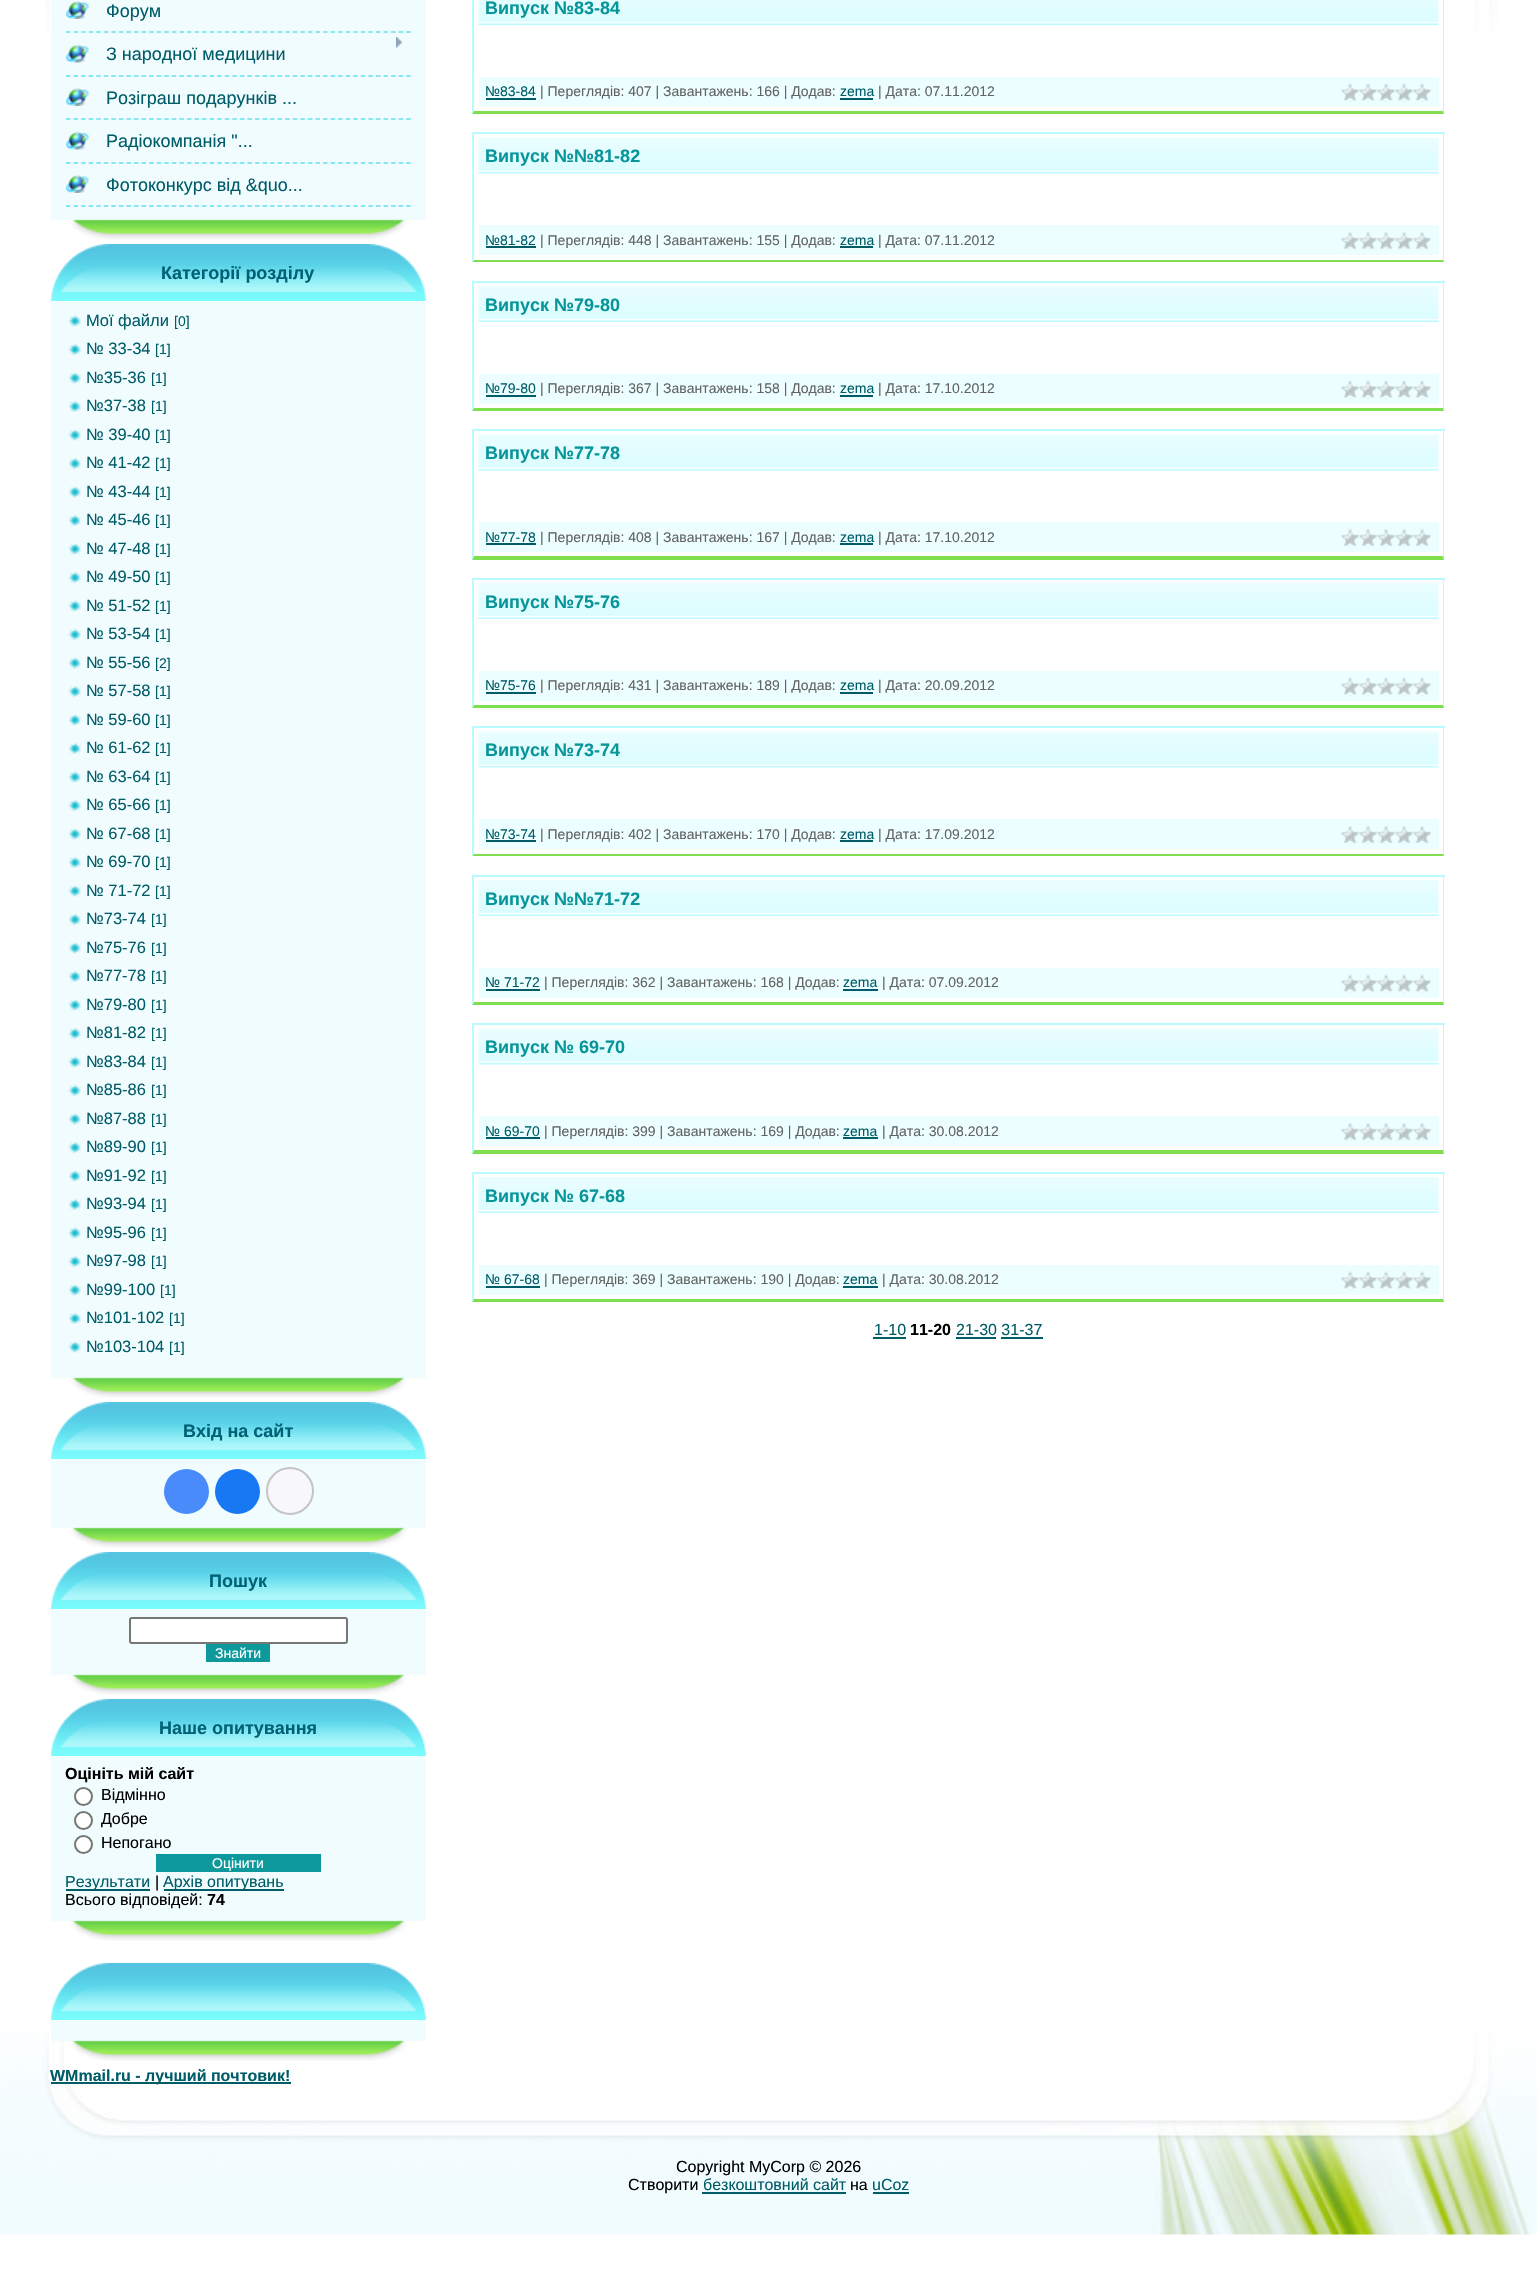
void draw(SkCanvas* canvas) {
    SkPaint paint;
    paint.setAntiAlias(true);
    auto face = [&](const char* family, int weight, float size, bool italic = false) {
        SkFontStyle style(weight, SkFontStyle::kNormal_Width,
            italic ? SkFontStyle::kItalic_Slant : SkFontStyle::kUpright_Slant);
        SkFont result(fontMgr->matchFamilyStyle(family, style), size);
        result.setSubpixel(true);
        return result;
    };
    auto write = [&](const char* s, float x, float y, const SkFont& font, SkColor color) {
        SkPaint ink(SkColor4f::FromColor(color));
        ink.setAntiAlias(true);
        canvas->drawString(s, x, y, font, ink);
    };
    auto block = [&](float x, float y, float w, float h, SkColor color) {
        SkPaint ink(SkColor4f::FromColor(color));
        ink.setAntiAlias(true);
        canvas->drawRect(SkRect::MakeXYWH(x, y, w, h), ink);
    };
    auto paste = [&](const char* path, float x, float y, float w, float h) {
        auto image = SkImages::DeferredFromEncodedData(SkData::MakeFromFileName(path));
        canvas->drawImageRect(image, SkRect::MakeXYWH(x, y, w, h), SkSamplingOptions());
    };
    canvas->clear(SK_ColorWHITE);
    paste("pic1.png", 0, 2031, 1537, 204);
    paste("pic2.png", 46, 0, 1452, 31);
    paste("pic3.png", 51, 0, 375, 240);
    paste("pic4.png", 66, 1, 23, 18);
    paint.setStyle(SkPaint::kStroke_Style);
    paint.setStrokeWidth(1.5f);
    paint.setColor(SkColorSetRGB(103, 225, 238));
    paint.setPathEffect(SkDashPathEffect::Make({{4.5f, 3.06f}}, 0));
    canvas->drawPath(SkPathBuilder().moveTo(66, 32).lineTo(411, 32).detach(), paint);
    paint.setPathEffect(nullptr);
    auto kFont1 = face("Liberation Sans", 400, 18);
    write("Форум", 106, 17, kFont1, SkColorSetRGB(0, 93, 104));
    paste("pic5.png", 66, 44, 23, 19);
    paint.setPathEffect(SkDashPathEffect::Make({{4.5f, 3.06f}}, 0));
    canvas->drawPath(SkPathBuilder().moveTo(66, 76).lineTo(411, 76).detach(), paint);
    paint.setPathEffect(nullptr);
    paste("pic6.png", 396, 37, 6, 11);
    write("З народної медицини", 106, 60, kFont1, SkColorSetRGB(0, 93, 104));
    paste("pic4.png", 66, 88, 23, 18);
    paint.setPathEffect(SkDashPathEffect::Make({{4.5f, 3.06f}}, 0));
    canvas->drawPath(SkPathBuilder().moveTo(66, 119).lineTo(411, 119).detach(), paint);
    paint.setPathEffect(nullptr);
    write("Розіграш подарунків ...", 106, 104, kFont1, SkColorSetRGB(0, 93, 104));
    paste("pic5.png", 66, 131, 23, 19);
    paint.setPathEffect(SkDashPathEffect::Make({{4.5f, 3.06f}}, 0));
    canvas->drawPath(SkPathBuilder().moveTo(66, 163).lineTo(411, 163).detach(), paint);
    paint.setPathEffect(nullptr);
    write("Радіокомпанія \"...", 106, 147, kFont1, SkColorSetRGB(0, 93, 104));
    paste("pic4.png", 66, 175, 23, 18);
    paint.setPathEffect(SkDashPathEffect::Make({{4.5f, 3.06f}}, 0));
    canvas->drawPath(SkPathBuilder().moveTo(66, 206).lineTo(411, 206).detach(), paint);
    paint.setPathEffect(nullptr);
    write("Фотоконкурс від &quo...", 106, 191, kFont1, SkColorSetRGB(0, 93, 104));
    paste("pic7.png", 51, 244, 375, 57);
    auto kFont2 = face("Liberation Sans", 700, 18);
    write("Категорії розділу", 161, 279, kFont2, SkColorSetRGB(0, 96, 118));
    paste("pic8.png", 51, 301, 375, 1097);
    paste("pic9.png", 68, 315, 13, 13);
    auto kFont3 = face("Liberation Sans", 400, 16.5f);
    write("Мої файли", 86, 326, kFont3, SkColorSetRGB(0, 93, 104));
    auto kFont4 = face("Liberation Sans", 400, 14);
    write("[0]", 174, 326, kFont4, SkColorSetRGB(0, 93, 104));
    paste("pic10.png", 68, 343, 13, 14);
    write("№ 33-34", 86, 354, kFont3, SkColorSetRGB(0, 93, 104));
    write("[1]", 155, 354, kFont4, SkColorSetRGB(0, 93, 104));
    paste("pic9.png", 68, 372, 13, 13);
    write("№35-36", 86, 383, kFont3, SkColorSetRGB(0, 93, 104));
    write("[1]", 151, 383, kFont4, SkColorSetRGB(0, 93, 104));
    paste("pic10.png", 68, 400, 13, 14);
    write("№37-38", 86, 411, kFont3, SkColorSetRGB(0, 93, 104));
    write("[1]", 151, 411, kFont4, SkColorSetRGB(0, 93, 104));
    paste("pic9.png", 68, 429, 13, 13);
    write("№ 39-40", 86, 440, kFont3, SkColorSetRGB(0, 93, 104));
    write("[1]", 155, 440, kFont4, SkColorSetRGB(0, 93, 104));
    paste("pic10.png", 68, 457, 13, 14);
    write("№ 41-42", 86, 468, kFont3, SkColorSetRGB(0, 93, 104));
    write("[1]", 155, 468, kFont4, SkColorSetRGB(0, 93, 104));
    paste("pic9.png", 68, 486, 13, 13);
    write("№ 43-44", 86, 497, kFont3, SkColorSetRGB(0, 93, 104));
    write("[1]", 155, 497, kFont4, SkColorSetRGB(0, 93, 104));
    paste("pic10.png", 68, 514, 13, 14);
    write("№ 45-46", 86, 525, kFont3, SkColorSetRGB(0, 93, 104));
    write("[1]", 155, 525, kFont4, SkColorSetRGB(0, 93, 104));
    paste("pic9.png", 68, 543, 13, 13);
    write("№ 47-48", 86, 554, kFont3, SkColorSetRGB(0, 93, 104));
    write("[1]", 155, 554, kFont4, SkColorSetRGB(0, 93, 104));
    paste("pic10.png", 68, 571, 13, 14);
    write("№ 49-50", 86, 582, kFont3, SkColorSetRGB(0, 93, 104));
    write("[1]", 155, 582, kFont4, SkColorSetRGB(0, 93, 104));
    paste("pic9.png", 68, 600, 13, 13);
    write("№ 51-52", 86, 611, kFont3, SkColorSetRGB(0, 93, 104));
    write("[1]", 155, 611, kFont4, SkColorSetRGB(0, 93, 104));
    paste("pic10.png", 68, 628, 13, 14);
    write("№ 53-54", 86, 639, kFont3, SkColorSetRGB(0, 93, 104));
    write("[1]", 155, 639, kFont4, SkColorSetRGB(0, 93, 104));
    paste("pic9.png", 68, 657, 13, 13);
    write("№ 55-56", 86, 668, kFont3, SkColorSetRGB(0, 93, 104));
    write("[2]", 155, 668, kFont4, SkColorSetRGB(0, 93, 104));
    paste("pic10.png", 68, 685, 13, 14);
    write("№ 57-58", 86, 696, kFont3, SkColorSetRGB(0, 93, 104));
    write("[1]", 155, 696, kFont4, SkColorSetRGB(0, 93, 104));
    paste("pic9.png", 68, 714, 13, 13);
    write("№ 59-60", 86, 725, kFont3, SkColorSetRGB(0, 93, 104));
    write("[1]", 155, 725, kFont4, SkColorSetRGB(0, 93, 104));
    paste("pic10.png", 68, 742, 13, 14);
    write("№ 61-62", 86, 753, kFont3, SkColorSetRGB(0, 93, 104));
    write("[1]", 155, 753, kFont4, SkColorSetRGB(0, 93, 104));
    paste("pic9.png", 68, 771, 13, 13);
    write("№ 63-64", 86, 782, kFont3, SkColorSetRGB(0, 93, 104));
    write("[1]", 155, 782, kFont4, SkColorSetRGB(0, 93, 104));
    paste("pic10.png", 68, 799, 13, 14);
    write("№ 65-66", 86, 810, kFont3, SkColorSetRGB(0, 93, 104));
    write("[1]", 155, 810, kFont4, SkColorSetRGB(0, 93, 104));
    paste("pic9.png", 68, 828, 13, 13);
    write("№ 67-68", 86, 839, kFont3, SkColorSetRGB(0, 93, 104));
    write("[1]", 155, 839, kFont4, SkColorSetRGB(0, 93, 104));
    paste("pic10.png", 68, 856, 13, 14);
    write("№ 69-70", 86, 867, kFont3, SkColorSetRGB(0, 93, 104));
    write("[1]", 155, 867, kFont4, SkColorSetRGB(0, 93, 104));
    paste("pic9.png", 68, 885, 13, 13);
    write("№ 71-72", 86, 896, kFont3, SkColorSetRGB(0, 93, 104));
    write("[1]", 155, 896, kFont4, SkColorSetRGB(0, 93, 104));
    paste("pic10.png", 68, 913, 13, 14);
    write("№73-74", 86, 924, kFont3, SkColorSetRGB(0, 93, 104));
    write("[1]", 151, 924, kFont4, SkColorSetRGB(0, 93, 104));
    paste("pic9.png", 68, 942, 13, 13);
    write("№75-76", 86, 953, kFont3, SkColorSetRGB(0, 93, 104));
    write("[1]", 151, 953, kFont4, SkColorSetRGB(0, 93, 104));
    paste("pic10.png", 68, 970, 13, 14);
    write("№77-78", 86, 981, kFont3, SkColorSetRGB(0, 93, 104));
    write("[1]", 151, 981, kFont4, SkColorSetRGB(0, 93, 104));
    paste("pic9.png", 68, 999, 13, 13);
    write("№79-80", 86, 1010, kFont3, SkColorSetRGB(0, 93, 104));
    write("[1]", 151, 1010, kFont4, SkColorSetRGB(0, 93, 104));
    paste("pic10.png", 68, 1027, 13, 14);
    write("№81-82", 86, 1038, kFont3, SkColorSetRGB(0, 93, 104));
    write("[1]", 151, 1038, kFont4, SkColorSetRGB(0, 93, 104));
    paste("pic9.png", 68, 1056, 13, 13);
    write("№83-84", 86, 1067, kFont3, SkColorSetRGB(0, 93, 104));
    write("[1]", 151, 1067, kFont4, SkColorSetRGB(0, 93, 104));
    paste("pic10.png", 68, 1084, 13, 14);
    write("№85-86", 86, 1095, kFont3, SkColorSetRGB(0, 93, 104));
    write("[1]", 151, 1095, kFont4, SkColorSetRGB(0, 93, 104));
    paste("pic9.png", 68, 1113, 13, 13);
    write("№87-88", 86, 1124, kFont3, SkColorSetRGB(0, 93, 104));
    write("[1]", 151, 1124, kFont4, SkColorSetRGB(0, 93, 104));
    paste("pic10.png", 68, 1141, 13, 14);
    write("№89-90", 86, 1152, kFont3, SkColorSetRGB(0, 93, 104));
    write("[1]", 151, 1152, kFont4, SkColorSetRGB(0, 93, 104));
    paste("pic9.png", 68, 1170, 13, 13);
    write("№91-92", 86, 1181, kFont3, SkColorSetRGB(0, 93, 104));
    write("[1]", 151, 1181, kFont4, SkColorSetRGB(0, 93, 104));
    paste("pic10.png", 68, 1198, 13, 14);
    write("№93-94", 86, 1209, kFont3, SkColorSetRGB(0, 93, 104));
    write("[1]", 151, 1209, kFont4, SkColorSetRGB(0, 93, 104));
    paste("pic9.png", 68, 1227, 13, 13);
    write("№95-96", 86, 1238, kFont3, SkColorSetRGB(0, 93, 104));
    write("[1]", 151, 1238, kFont4, SkColorSetRGB(0, 93, 104));
    paste("pic10.png", 68, 1255, 13, 14);
    write("№97-98", 86, 1266, kFont3, SkColorSetRGB(0, 93, 104));
    write("[1]", 151, 1266, kFont4, SkColorSetRGB(0, 93, 104));
    paste("pic9.png", 68, 1284, 13, 13);
    write("№99-100", 86, 1295, kFont3, SkColorSetRGB(0, 93, 104));
    write("[1]", 160, 1295, kFont4, SkColorSetRGB(0, 93, 104));
    paste("pic10.png", 68, 1312, 13, 14);
    write("№101-102", 86, 1323, kFont3, SkColorSetRGB(0, 93, 104));
    write("[1]", 169, 1323, kFont4, SkColorSetRGB(0, 93, 104));
    paste("pic9.png", 68, 1341, 13, 13);
    write("№103-104", 86, 1352, kFont3, SkColorSetRGB(0, 93, 104));
    write("[1]", 169, 1352, kFont4, SkColorSetRGB(0, 93, 104));
    paste("pic7.png", 51, 1402, 375, 57);
    write("Вхід на сайт", 183, 1437, kFont2, SkColorSetRGB(0, 96, 118));
    paste("pic11.png", 51, 1459, 375, 89);
    paint.setStyle(SkPaint::kFill_Style);
    paint.setColor(SkColorSetRGB(73, 139, 250));
    canvas->drawCircle(186.5f, 1491.5f, 22.5f, paint);
    paint.setColor(SkColorSetRGB(24, 119, 242));
    canvas->drawCircle(237.5f, 1491.5f, 22.5f, paint);
    paint.setColor(SkColorSetRGB(248, 248, 252));
    canvas->drawCircle(290, 1491, 23, paint);
    paint.setStyle(SkPaint::kStroke_Style);
    paint.setStrokeWidth(2);
    paint.setColor(SkColorSetRGB(196, 196, 196));
    canvas->drawCircle(290, 1491, 23, paint);
    paste("pic7.png", 51, 1552, 375, 57);
    write("Пошук", 209, 1587, kFont2, SkColorSetRGB(0, 96, 118));
    paste("pic12.png", 51, 1609, 375, 86);
    paint.setStyle(SkPaint::kFill_Style);
    paint.setColor(SK_ColorWHITE);
    canvas->drawRoundRect(SkRect::MakeXYWH(130, 1618, 217, 25), 2, 2, paint);
    paint.setStyle(SkPaint::kStroke_Style);
    paint.setColor(SkColorSetRGB(118, 118, 118));
    canvas->drawRoundRect(SkRect::MakeXYWH(130, 1618, 217, 25), 2, 2, paint);
    block(206, 1644, 64, 18, SkColorSetRGB(13, 152, 156));
    write("Знайти", 215, 1658, kFont4, SK_ColorWHITE);
    paste("pic7.png", 51, 1699, 375, 57);
    write("Наше опитування", 159, 1734, kFont2, SkColorSetRGB(0, 96, 118));
    paste("pic13.png", 51, 1756, 375, 185);
    auto kFont5 = face("Liberation Sans", 700, 16);
    write("Оцініть мій сайт", 65, 1779, kFont5, SK_ColorBLACK);
    paint.setStyle(SkPaint::kFill_Style);
    paint.setColor(SK_ColorWHITE);
    canvas->drawCircle(83.5f, 1796.5f, 8.5f, paint);
    paint.setStyle(SkPaint::kStroke_Style);
    paint.setColor(SkColorSetRGB(118, 118, 118));
    canvas->drawCircle(83.5f, 1796.5f, 8.5f, paint);
    auto kFont6 = face("Liberation Sans", 400, 16);
    write("Відмінно", 101, 1800, kFont6, SK_ColorBLACK);
    paint.setStyle(SkPaint::kFill_Style);
    paint.setColor(SK_ColorWHITE);
    canvas->drawCircle(83.5f, 1820.5f, 8.5f, paint);
    paint.setStyle(SkPaint::kStroke_Style);
    paint.setColor(SkColorSetRGB(118, 118, 118));
    canvas->drawCircle(83.5f, 1820.5f, 8.5f, paint);
    write("Добре", 101, 1824, kFont6, SK_ColorBLACK);
    paint.setStyle(SkPaint::kFill_Style);
    paint.setColor(SK_ColorWHITE);
    canvas->drawCircle(83.5f, 1844.5f, 8.5f, paint);
    paint.setStyle(SkPaint::kStroke_Style);
    paint.setColor(SkColorSetRGB(118, 118, 118));
    canvas->drawCircle(83.5f, 1844.5f, 8.5f, paint);
    write("Непогано", 101, 1848, kFont6, SK_ColorBLACK);
    block(156, 1854, 165, 18, SkColorSetRGB(13, 152, 156));
    write("Оцінити", 212, 1868, kFont4, SK_ColorWHITE);
    block(66, 1889, 84, 2, SkColorSetRGB(0, 93, 104));
    write("Результати", 65, 1887, kFont6, SkColorSetRGB(0, 93, 104));
    write("|", 155, 1887, kFont6, SK_ColorBLACK);
    block(164, 1889, 120, 2, SkColorSetRGB(0, 93, 104));
    write("Архів опитувань", 163, 1887, kFont6, SkColorSetRGB(0, 93, 104));
    write("Всього відповідей:", 65, 1905, kFont6, SK_ColorBLACK);
    write("74", 207, 1905, kFont5, SK_ColorBLACK);
    paste("pic7.png", 51, 1963, 375, 57);
    paste("pic14.png", 51, 2020, 375, 41);
    block(51, 2082, 240, 2, SkColorSetRGB(0, 93, 104));
    write("WMmail.ru - лучший почтовик!", 50, 2081, kFont5, SkColorSetRGB(0, 93, 104));
    paint.setStyle(SkPaint::kFill_Style);
    paint.setColor(SkColorSetRGB(185, 250, 255));
    canvas->drawPath(SkPathBuilder().moveTo(1444, -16).lineTo(1444, 114).lineTo(1443, 111).lineTo(1443, -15).close().detach(), paint);
    paint.setColor(SkColorSetRGB(128, 222, 79));
    canvas->drawPath(SkPathBuilder().moveTo(1444, 114).lineTo(472, 114).lineTo(474, 111).lineTo(1443, 111).close().detach(), paint);
    paint.setColor(SkColorSetRGB(185, 250, 255));
    canvas->drawPath(SkPathBuilder().moveTo(472, 114).lineTo(472, -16).lineTo(474, -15).lineTo(474, 111).close().detach(), paint);
    paste("pic15.png", 478, 0, 961, 25);
    write("Випуск №83-84", 485, 14, kFont2, SkColorSetRGB(8, 149, 153));
    block(479, 77, 960, 30, SkColorSetRGB(236, 254, 255));
    write("№83-84", 485, 96, kFont4, SkColorSetRGB(0, 93, 104));
    block(486, 98, 50, 2, SkColorSetRGB(0, 93, 104));
    write("| Переглядів: 407 | Завантажень: 166 | Додав:", 540, 96, kFont4, SkColorSetRGB(99, 99, 99));
    write("zema", 840, 96, kFont4, SkColorSetRGB(0, 93, 104));
    block(840, 98, 33, 2, SkColorSetRGB(0, 93, 104));
    write("| Дата: 07.11.2012", 878, 96, kFont4, SkColorSetRGB(99, 99, 99));
    paste("pic16.png", 1341, 83, 90, 19);
    block(473, 132, 972, 2, SkColorSetRGB(185, 250, 255));
    canvas->drawPath(SkPathBuilder().moveTo(1444, 132).lineTo(1444, 262).lineTo(1443, 260).lineTo(1443, 134).close().detach(), paint);
    paint.setColor(SkColorSetRGB(128, 222, 79));
    canvas->drawPath(SkPathBuilder().moveTo(1444, 262).lineTo(472, 262).lineTo(474, 260).lineTo(1443, 260).close().detach(), paint);
    paint.setColor(SkColorSetRGB(185, 250, 255));
    canvas->drawPath(SkPathBuilder().moveTo(472, 262).lineTo(472, 132).lineTo(474, 134).lineTo(474, 260).close().detach(), paint);
    paste("pic17.png", 478, 137, 961, 37);
    write("Випуск №№81-82", 485, 162, kFont2, SkColorSetRGB(8, 149, 153));
    block(479, 225, 960, 30, SkColorSetRGB(236, 254, 255));
    write("№81-82", 485, 245, kFont4, SkColorSetRGB(0, 93, 104));
    block(486, 246, 50, 2, SkColorSetRGB(0, 93, 104));
    write("| Переглядів: 448 | Завантажень: 155 | Додав:", 540, 245, kFont4, SkColorSetRGB(99, 99, 99));
    write("zema", 840, 245, kFont4, SkColorSetRGB(0, 93, 104));
    block(840, 246, 33, 2, SkColorSetRGB(0, 93, 104));
    write("| Дата: 07.11.2012", 878, 245, kFont4, SkColorSetRGB(99, 99, 99));
    paste("pic18.png", 1341, 232, 90, 18);
    block(473, 281, 972, 2, SkColorSetRGB(185, 250, 255));
    canvas->drawPath(SkPathBuilder().moveTo(1444, 280).lineTo(1444, 411).lineTo(1443, 408).lineTo(1443, 282).close().detach(), paint);
    paint.setColor(SkColorSetRGB(128, 222, 79));
    canvas->drawPath(SkPathBuilder().moveTo(1444, 411).lineTo(472, 411).lineTo(474, 408).lineTo(1443, 408).close().detach(), paint);
    paint.setColor(SkColorSetRGB(185, 250, 255));
    canvas->drawPath(SkPathBuilder().moveTo(472, 411).lineTo(472, 280).lineTo(474, 282).lineTo(474, 408).close().detach(), paint);
    paste("pic19.png", 478, 286, 961, 36);
    write("Випуск №79-80", 485, 311, kFont2, SkColorSetRGB(8, 149, 153));
    block(479, 374, 960, 30, SkColorSetRGB(236, 254, 255));
    write("№79-80", 485, 393, kFont4, SkColorSetRGB(0, 93, 104));
    block(486, 395, 50, 2, SkColorSetRGB(0, 93, 104));
    write("| Переглядів: 367 | Завантажень: 158 | Додав:", 540, 393, kFont4, SkColorSetRGB(99, 99, 99));
    write("zema", 840, 393, kFont4, SkColorSetRGB(0, 93, 104));
    block(840, 395, 33, 2, SkColorSetRGB(0, 93, 104));
    write("| Дата: 17.10.2012", 878, 393, kFont4, SkColorSetRGB(99, 99, 99));
    paste("pic20.png", 1341, 380, 90, 19);
    block(473, 429, 972, 2, SkColorSetRGB(185, 250, 255));
    canvas->drawPath(SkPathBuilder().moveTo(1444, 429).lineTo(1444, 560).lineTo(1443, 556).lineTo(1443, 430).close().detach(), paint);
    paint.setColor(SkColorSetRGB(128, 222, 79));
    canvas->drawPath(SkPathBuilder().moveTo(1444, 560).lineTo(472, 560).lineTo(474, 556).lineTo(1443, 556).close().detach(), paint);
    paint.setColor(SkColorSetRGB(185, 250, 255));
    canvas->drawPath(SkPathBuilder().moveTo(472, 560).lineTo(472, 429).lineTo(474, 430).lineTo(474, 556).close().detach(), paint);
    paste("pic21.png", 478, 434, 961, 37);
    write("Випуск №77-78", 485, 459, kFont2, SkColorSetRGB(8, 149, 153));
    block(479, 522, 960, 30, SkColorSetRGB(236, 254, 255));
    write("№77-78", 485, 542, kFont4, SkColorSetRGB(0, 93, 104));
    block(486, 543, 50, 2, SkColorSetRGB(0, 93, 104));
    write("| Переглядів: 408 | Завантажень: 167 | Додав:", 540, 542, kFont4, SkColorSetRGB(99, 99, 99));
    write("zema", 840, 542, kFont4, SkColorSetRGB(0, 93, 104));
    block(840, 543, 33, 2, SkColorSetRGB(0, 93, 104));
    write("| Дата: 17.10.2012", 878, 542, kFont4, SkColorSetRGB(99, 99, 99));
    paste("pic22.png", 1341, 529, 90, 18);
    block(473, 578, 972, 2, SkColorSetRGB(185, 250, 255));
    canvas->drawPath(SkPathBuilder().moveTo(1444, 578).lineTo(1444, 708).lineTo(1443, 705).lineTo(1443, 579).close().detach(), paint);
    paint.setColor(SkColorSetRGB(128, 222, 79));
    canvas->drawPath(SkPathBuilder().moveTo(1444, 708).lineTo(472, 708).lineTo(474, 705).lineTo(1443, 705).close().detach(), paint);
    paint.setColor(SkColorSetRGB(185, 250, 255));
    canvas->drawPath(SkPathBuilder().moveTo(472, 708).lineTo(472, 578).lineTo(474, 579).lineTo(474, 705).close().detach(), paint);
    paste("pic19.png", 478, 583, 961, 36);
    write("Випуск №75-76", 485, 608, kFont2, SkColorSetRGB(8, 149, 153));
    block(479, 671, 960, 30, SkColorSetRGB(236, 254, 255));
    write("№75-76", 485, 690, kFont4, SkColorSetRGB(0, 93, 104));
    block(486, 692, 50, 2, SkColorSetRGB(0, 93, 104));
    write("| Переглядів: 431 | Завантажень: 189 | Додав:", 540, 690, kFont4, SkColorSetRGB(99, 99, 99));
    write("zema", 840, 690, kFont4, SkColorSetRGB(0, 93, 104));
    block(840, 692, 33, 2, SkColorSetRGB(0, 93, 104));
    write("| Дата: 20.09.2012", 878, 690, kFont4, SkColorSetRGB(99, 99, 99));
    paste("pic23.png", 1341, 677, 90, 19);
    block(473, 726, 972, 2, SkColorSetRGB(185, 250, 255));
    canvas->drawPath(SkPathBuilder().moveTo(1444, 726).lineTo(1444, 856).lineTo(1443, 854).lineTo(1443, 728).close().detach(), paint);
    paint.setColor(SkColorSetRGB(128, 222, 79));
    canvas->drawPath(SkPathBuilder().moveTo(1444, 856).lineTo(472, 856).lineTo(474, 854).lineTo(1443, 854).close().detach(), paint);
    paint.setColor(SkColorSetRGB(185, 250, 255));
    canvas->drawPath(SkPathBuilder().moveTo(472, 856).lineTo(472, 726).lineTo(474, 728).lineTo(474, 854).close().detach(), paint);
    paste("pic24.png", 478, 731, 961, 37);
    write("Випуск №73-74", 485, 756, kFont2, SkColorSetRGB(8, 149, 153));
    block(479, 819, 960, 30, SkColorSetRGB(236, 254, 255));
    write("№73-74", 485, 839, kFont4, SkColorSetRGB(0, 93, 104));
    block(486, 840, 50, 2, SkColorSetRGB(0, 93, 104));
    write("| Переглядів: 402 | Завантажень: 170 | Додав:", 540, 839, kFont4, SkColorSetRGB(99, 99, 99));
    write("zema", 840, 839, kFont4, SkColorSetRGB(0, 93, 104));
    block(840, 840, 33, 2, SkColorSetRGB(0, 93, 104));
    write("| Дата: 17.09.2012", 878, 839, kFont4, SkColorSetRGB(99, 99, 99));
    paste("pic25.png", 1341, 826, 90, 18);
    block(473, 875, 972, 2, SkColorSetRGB(185, 250, 255));
    canvas->drawPath(SkPathBuilder().moveTo(1444, 874).lineTo(1444, 1005).lineTo(1443, 1002).lineTo(1443, 876).close().detach(), paint);
    paint.setColor(SkColorSetRGB(128, 222, 79));
    canvas->drawPath(SkPathBuilder().moveTo(1444, 1005).lineTo(472, 1005).lineTo(474, 1002).lineTo(1443, 1002).close().detach(), paint);
    paint.setColor(SkColorSetRGB(185, 250, 255));
    canvas->drawPath(SkPathBuilder().moveTo(472, 1005).lineTo(472, 874).lineTo(474, 876).lineTo(474, 1002).close().detach(), paint);
    paste("pic19.png", 478, 880, 961, 36);
    write("Випуск №№71-72", 485, 905, kFont2, SkColorSetRGB(8, 149, 153));
    block(479, 968, 960, 30, SkColorSetRGB(236, 254, 255));
    write("№ 71-72", 485, 987, kFont4, SkColorSetRGB(0, 93, 104));
    block(486, 989, 54, 2, SkColorSetRGB(0, 93, 104));
    write("| Переглядів: 362 | Завантажень: 168 | Додав:", 544, 987, kFont4, SkColorSetRGB(99, 99, 99));
    write("zema", 843, 987, kFont4, SkColorSetRGB(0, 93, 104));
    block(843, 989, 35, 2, SkColorSetRGB(0, 93, 104));
    write("| Дата: 07.09.2012", 882, 987, kFont4, SkColorSetRGB(99, 99, 99));
    paste("pic26.png", 1341, 974, 90, 19);
    block(473, 1023, 972, 2, SkColorSetRGB(185, 250, 255));
    canvas->drawPath(SkPathBuilder().moveTo(1444, 1023).lineTo(1444, 1154).lineTo(1443, 1150).lineTo(1443, 1024).close().detach(), paint);
    paint.setColor(SkColorSetRGB(128, 222, 79));
    canvas->drawPath(SkPathBuilder().moveTo(1444, 1154).lineTo(472, 1154).lineTo(474, 1150).lineTo(1443, 1150).close().detach(), paint);
    paint.setColor(SkColorSetRGB(185, 250, 255));
    canvas->drawPath(SkPathBuilder().moveTo(472, 1154).lineTo(472, 1023).lineTo(474, 1024).lineTo(474, 1150).close().detach(), paint);
    paste("pic17.png", 478, 1028, 961, 37);
    write("Випуск № 69-70", 485, 1053, kFont2, SkColorSetRGB(8, 149, 153));
    block(479, 1116, 960, 30, SkColorSetRGB(236, 254, 255));
    write("№ 69-70", 485, 1136, kFont4, SkColorSetRGB(0, 93, 104));
    block(486, 1137, 54, 2, SkColorSetRGB(0, 93, 104));
    write("| Переглядів: 399 | Завантажень: 169 | Додав:", 544, 1136, kFont4, SkColorSetRGB(99, 99, 99));
    write("zema", 843, 1136, kFont4, SkColorSetRGB(0, 93, 104));
    block(843, 1137, 35, 2, SkColorSetRGB(0, 93, 104));
    write("| Дата: 30.08.2012", 882, 1136, kFont4, SkColorSetRGB(99, 99, 99));
    paste("pic27.png", 1341, 1123, 90, 18);
    block(473, 1172, 972, 2, SkColorSetRGB(185, 250, 255));
    canvas->drawPath(SkPathBuilder().moveTo(1444, 1172).lineTo(1444, 1302).lineTo(1443, 1299).lineTo(1443, 1173).close().detach(), paint);
    paint.setColor(SkColorSetRGB(128, 222, 79));
    canvas->drawPath(SkPathBuilder().moveTo(1444, 1302).lineTo(472, 1302).lineTo(474, 1299).lineTo(1443, 1299).close().detach(), paint);
    paint.setColor(SkColorSetRGB(185, 250, 255));
    canvas->drawPath(SkPathBuilder().moveTo(472, 1302).lineTo(472, 1172).lineTo(474, 1173).lineTo(474, 1299).close().detach(), paint);
    paste("pic28.png", 478, 1177, 961, 36);
    write("Випуск № 67-68", 485, 1202, kFont2, SkColorSetRGB(8, 149, 153));
    block(479, 1265, 960, 30, SkColorSetRGB(236, 254, 255));
    write("№ 67-68", 485, 1284, kFont4, SkColorSetRGB(0, 93, 104));
    block(486, 1286, 54, 2, SkColorSetRGB(0, 93, 104));
    write("| Переглядів: 369 | Завантажень: 190 | Додав:", 544, 1284, kFont4, SkColorSetRGB(99, 99, 99));
    write("zema", 843, 1284, kFont4, SkColorSetRGB(0, 93, 104));
    block(843, 1286, 35, 2, SkColorSetRGB(0, 93, 104));
    write("| Дата: 30.08.2012", 882, 1284, kFont4, SkColorSetRGB(99, 99, 99));
    paste("pic29.png", 1341, 1271, 90, 19);
    write("1-10", 874, 1335, kFont6, SkColorSetRGB(0, 93, 104));
    block(873, 1337, 33, 2, SkColorSetRGB(0, 93, 104));
    write("11-20", 910, 1335, kFont5, SK_ColorBLACK);
    write("21-30 31-37", 956, 1335, kFont6, SkColorSetRGB(0, 93, 104));
    block(956, 1337, 40, 2, SkColorSetRGB(0, 93, 104));
    block(1001, 1337, 42, 2, SkColorSetRGB(0, 93, 104));
    write("Copyright MyCorp © 2026", 676, 2172, kFont6, SK_ColorBLACK);
    write("Створити", 628, 2190, kFont6, SK_ColorBLACK);
    write("безкоштовний сайт", 703, 2190, kFont6, SkColorSetRGB(0, 93, 104));
    block(702, 2192, 144, 2, SkColorSetRGB(0, 93, 104));
    write("на", 850, 2190, kFont6, SK_ColorBLACK);
    write("uCoz", 872, 2190, kFont6, SkColorSetRGB(0, 93, 104));
    block(873, 2192, 36, 2, SkColorSetRGB(0, 93, 104));
}
